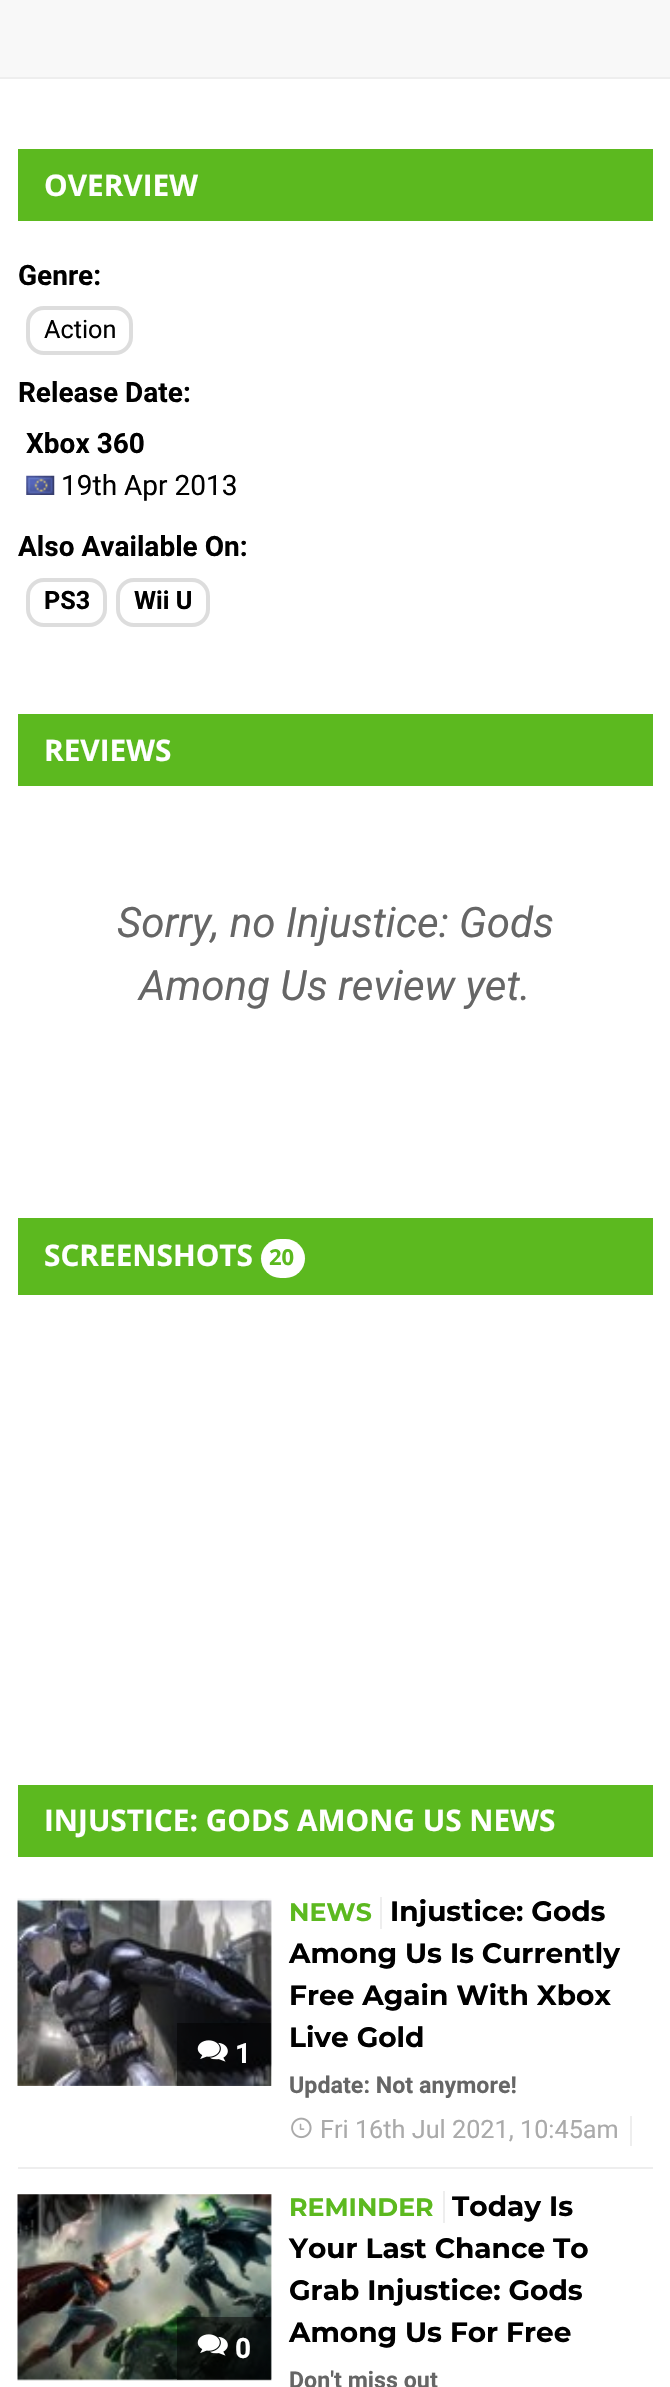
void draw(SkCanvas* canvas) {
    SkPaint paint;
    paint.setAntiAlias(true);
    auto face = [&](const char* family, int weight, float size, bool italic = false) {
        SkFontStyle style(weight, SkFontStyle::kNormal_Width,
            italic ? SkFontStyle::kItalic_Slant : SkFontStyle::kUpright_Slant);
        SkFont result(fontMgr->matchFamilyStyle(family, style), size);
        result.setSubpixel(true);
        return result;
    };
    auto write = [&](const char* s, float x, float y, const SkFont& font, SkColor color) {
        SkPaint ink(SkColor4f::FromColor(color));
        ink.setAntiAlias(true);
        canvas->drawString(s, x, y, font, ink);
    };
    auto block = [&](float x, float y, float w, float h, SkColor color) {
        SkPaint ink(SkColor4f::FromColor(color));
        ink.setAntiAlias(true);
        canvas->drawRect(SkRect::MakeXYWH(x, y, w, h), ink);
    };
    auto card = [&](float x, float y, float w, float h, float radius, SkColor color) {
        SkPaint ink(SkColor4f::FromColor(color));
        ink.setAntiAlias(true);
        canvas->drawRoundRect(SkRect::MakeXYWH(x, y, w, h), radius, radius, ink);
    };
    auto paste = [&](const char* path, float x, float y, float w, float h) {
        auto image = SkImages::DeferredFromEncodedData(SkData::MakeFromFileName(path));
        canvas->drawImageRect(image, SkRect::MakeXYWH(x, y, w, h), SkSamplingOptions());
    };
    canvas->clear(SK_ColorWHITE);
    block(0, 0, 670, 77, SkColorSetRGB(248, 248, 248));
    block(0, 77, 670, 2, SkColorSetRGB(238, 238, 238));
    block(18, 149, 635, 72, SkColorSetRGB(92, 185, 31));
    auto kFont1 = face("Open Sans", 700, 29.75f);
    write("OVERVIEW", 44, 196, kFont1, SK_ColorWHITE);
    auto kFont2 = face("Roboto", 700, 28);
    write("Genre:", 18, 285, kFont2, SK_ColorBLACK);
    paint.setStyle(SkPaint::kStroke_Style);
    paint.setStrokeWidth(4);
    paint.setColor(SkColorSetRGB(221, 221, 221));
    canvas->drawRoundRect(SkRect::MakeXYWH(28, 308, 103, 45), 16, 16, paint);
    auto kFont3 = face("Roboto", 400, 25.25f);
    write("Action", 44, 338, kFont3, SK_ColorBLACK);
    write("Release Date:", 18, 402, kFont2, SK_ColorBLACK);
    write("Xbox 360", 26, 453, kFont2, SK_ColorBLACK);
    paste("pic1.png", 26, 475, 29, 20);
    auto kFont4 = face("Roboto", 400, 28);
    write("19th Apr 2013", 61, 495, kFont4, SK_ColorBLACK);
    write("Also Available On:", 18, 556, kFont2, SK_ColorBLACK);
    canvas->drawRoundRect(SkRect::MakeXYWH(28, 580, 77, 45), 16, 16, paint);
    auto kFont5 = face("Roboto", 700, 25.25f);
    write("PS3", 44, 609, kFont5, SK_ColorBLACK);
    canvas->drawRoundRect(SkRect::MakeXYWH(118, 580, 90, 45), 16, 16, paint);
    write("Wii U", 134, 609, kFont5, SK_ColorBLACK);
    block(18, 714, 635, 72, SkColorSetRGB(92, 185, 31));
    write("REVIEWS", 44, 761, kFont1, SK_ColorWHITE);
    auto kFont6 = face("Roboto", 400, 42, true);
    write("Sorry, no Injustice: Gods", 117, 937, kFont6, SkColorSetRGB(102, 102, 102));
    write("Among Us review yet.", 139, 1000, kFont6, SkColorSetRGB(102, 102, 102));
    block(18, 1218, 635, 77, SkColorSetRGB(92, 185, 31));
    write("SCREENSHOTS", 44, 1266, kFont1, SK_ColorWHITE);
    card(261, 1239, 44, 39, 19.5f, SK_ColorWHITE);
    auto kFont7 = face("Open Sans", 700, 22);
    write("20", 269, 1265, kFont7, SkColorSetRGB(92, 185, 31));
    block(18, 1785, 635, 72, SkColorSetRGB(92, 185, 31));
    write("INJUSTICE: GODS AMONG US NEWS", 44, 1831, kFont1, SK_ColorWHITE);
    block(18, 2167, 635, 2, SkColorSetRGB(238, 238, 238));
    paste("pic2.png", 17, 1898, 255, 188);
    block(177, 2023, 94, 63, SkColorSetARGB(128, 0, 0, 0));
    paste("pic3.png", 197, 2040, 31, 22);
    write("1", 235, 2063, kFont2, SK_ColorWHITE);
    auto kFont8 = face("Montserrat", 700, 25.25f);
    write("NEWS", 289, 1921, kFont8, SkColorSetRGB(92, 185, 31));
    block(380, 1897, 2, 32, SkColorSetRGB(238, 238, 238));
    auto kFont9 = face("Montserrat", 700, 28);
    write("Injustice: Gods", 390, 1921, kFont9, SK_ColorBLACK);
    write("Among Us Is Currently", 289, 1963, kFont9, SK_ColorBLACK);
    write("Free Again With Xbox", 289, 2005, kFont9, SK_ColorBLACK);
    write("Live Gold", 289, 2047, kFont9, SK_ColorBLACK);
    auto kFont10 = face("Roboto", 700, 23.25f);
    write("Update: Not anymore!", 289, 2093, kFont10, SkColorSetRGB(102, 102, 102));
    paste("pic4.png", 291, 2117, 21, 22);
    write("Fri 16th Jul 2021, 10:45am", 320, 2138, kFont3, SkColorSetRGB(170, 170, 170));
    block(630, 2116, 2, 30, SkColorSetRGB(238, 238, 238));
    block(18, 2195, 253, 185, SkColorSetRGB(238, 238, 238));
    paste("pic5.png", 17, 2194, 255, 187);
    block(177, 2317, 94, 63, SkColorSetARGB(128, 0, 0, 0));
    paste("pic6.png", 197, 2334, 31, 22);
    write("0", 235, 2358, kFont2, SK_ColorWHITE);
    write("REMINDER", 289, 2216, kFont8, SkColorSetRGB(92, 185, 31));
    write("Today Is", 452, 2216, kFont9, SK_ColorBLACK);
    block(443, 2191, 2, 32, SkColorSetRGB(238, 238, 238));
    write("Your Last Chance To", 289, 2258, kFont9, SK_ColorBLACK);
    write("Grab Injustice: Gods", 289, 2300, kFont9, SK_ColorBLACK);
    write("Among Us For Free", 289, 2342, kFont9, SK_ColorBLACK);
    write("Don't miss out", 289, 2388, kFont10, SkColorSetRGB(102, 102, 102));
}
